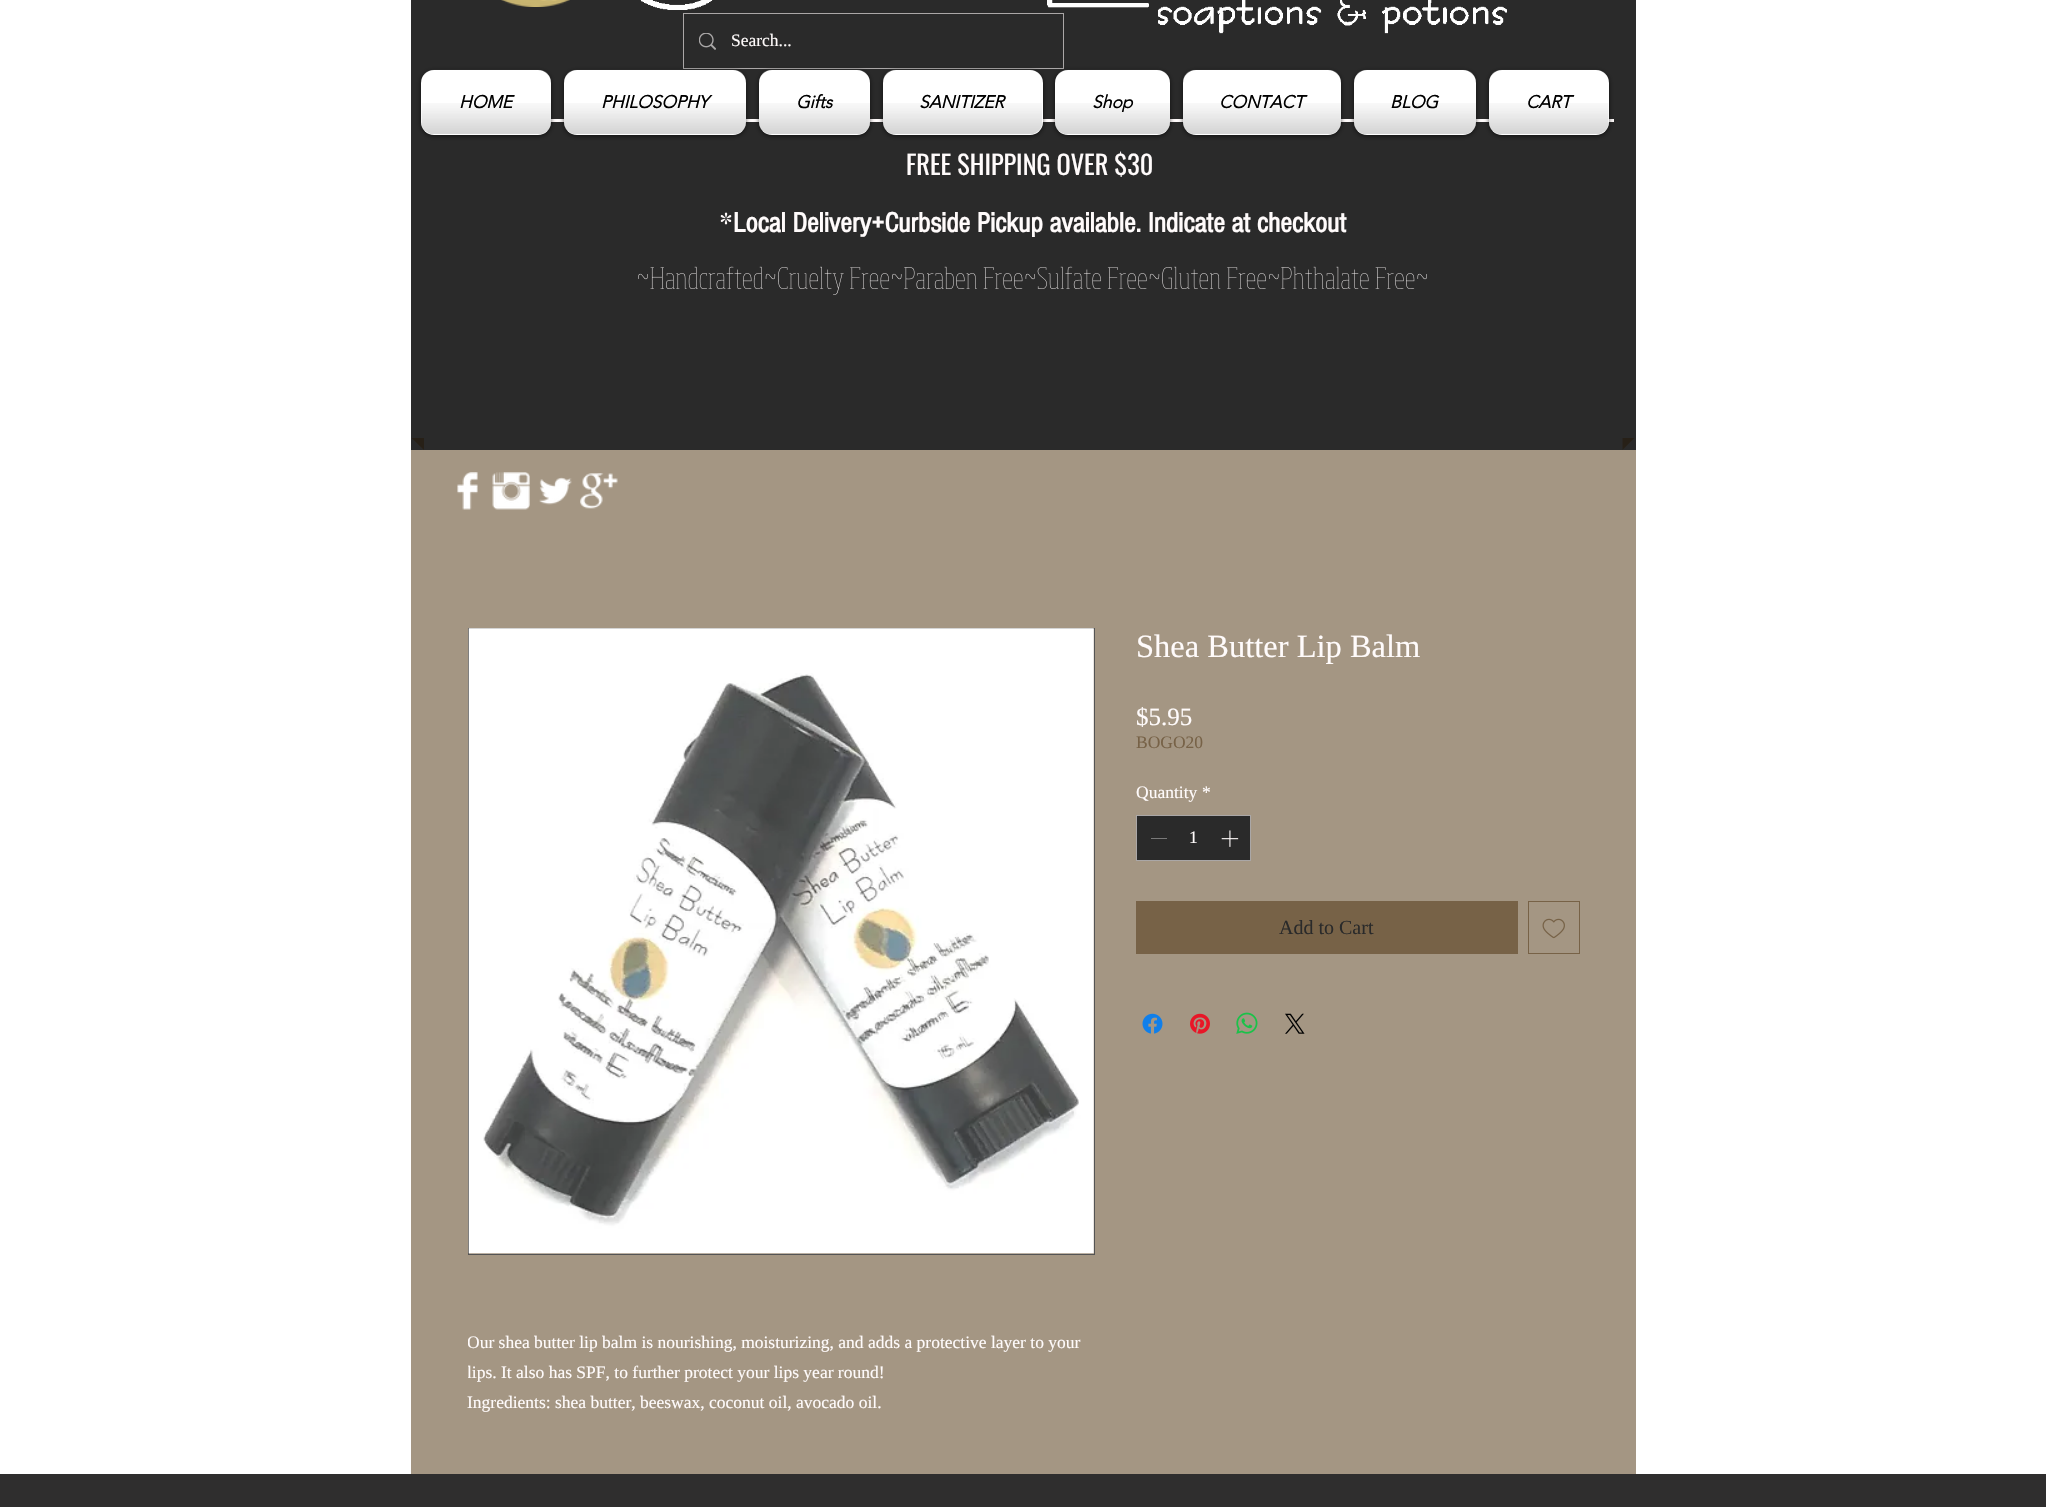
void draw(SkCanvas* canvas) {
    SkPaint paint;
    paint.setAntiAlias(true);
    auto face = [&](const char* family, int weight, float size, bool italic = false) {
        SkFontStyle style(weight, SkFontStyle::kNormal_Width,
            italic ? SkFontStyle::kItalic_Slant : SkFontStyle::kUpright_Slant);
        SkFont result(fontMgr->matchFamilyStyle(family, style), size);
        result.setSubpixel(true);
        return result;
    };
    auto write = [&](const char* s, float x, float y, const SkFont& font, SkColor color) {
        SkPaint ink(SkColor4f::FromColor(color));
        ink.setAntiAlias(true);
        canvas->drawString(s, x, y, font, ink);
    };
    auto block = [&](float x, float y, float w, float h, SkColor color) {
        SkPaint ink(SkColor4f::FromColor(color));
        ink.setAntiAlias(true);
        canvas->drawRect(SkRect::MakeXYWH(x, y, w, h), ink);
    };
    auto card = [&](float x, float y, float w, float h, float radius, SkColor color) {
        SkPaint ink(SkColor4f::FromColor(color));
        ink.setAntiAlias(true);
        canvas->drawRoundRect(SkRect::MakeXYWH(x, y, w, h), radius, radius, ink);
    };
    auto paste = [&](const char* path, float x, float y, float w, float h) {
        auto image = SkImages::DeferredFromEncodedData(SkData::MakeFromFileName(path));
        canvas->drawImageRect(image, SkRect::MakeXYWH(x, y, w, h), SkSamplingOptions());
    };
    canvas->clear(SK_ColorWHITE);
    block(411, 0, 1225, 450, SkColorSetRGB(42, 42, 42));
    paste("pic1.png", 501, 0, 69, 7);
    paste("pic2.png", 640, 0, 867, 34);
    paint.setStyle(SkPaint::kStroke_Style);
    paint.setStrokeWidth(1);
    paint.setColor(SkColorSetRGB(170, 167, 167));
    canvas->drawRect(SkRect::MakeXYWH(683.5f, 13.5f, 380, 55), paint);
    paste("pic3.png", 699, 33, 17, 17);
    auto kFont1 = face("Liberation Serif", 400, 17.5f);
    write("Search...", 731, 46, kFont1, SkColorSetRGB(255, 251, 251));
    block(551, 119, 1063, 3, SkColorSetRGB(255, 251, 251));
    paint.setStyle(SkPaint::kFill_Style);
    paint.setColor(SkColorSetARGB(153, 0, 0, 0));
    paint.setMaskFilter(SkMaskFilter::MakeBlur(kNormal_SkBlurStyle, 2.5f));
    canvas->drawRoundRect(SkRect::MakeXYWH(421, 71, 130, 65), 13, 13, paint);
    paint.setMaskFilter(nullptr);
    card(421, 70, 130, 65, 13, SK_ColorWHITE);
    paste("pic4.png", 422, 69, 129, 13);
    paste("pic5.png", 421, 103, 130, 31);
    auto kFont2 = face("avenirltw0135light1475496", 700, 17.5f, true);
    write("HOME", 459, 108, kFont2, SK_ColorBLACK);
    paint.setMaskFilter(SkMaskFilter::MakeBlur(kNormal_SkBlurStyle, 2.5f));
    canvas->drawRoundRect(SkRect::MakeXYWH(564, 71, 182, 65), 13, 13, paint);
    paint.setMaskFilter(nullptr);
    card(564, 70, 182, 65, 13, SK_ColorWHITE);
    paste("pic6.png", 564, 69, 182, 13);
    paste("pic7.png", 564, 103, 182, 31);
    write("PHILOSOPHY", 601, 108, kFont2, SK_ColorBLACK);
    paint.setMaskFilter(SkMaskFilter::MakeBlur(kNormal_SkBlurStyle, 2.5f));
    canvas->drawRoundRect(SkRect::MakeXYWH(759, 71, 111, 65), 13, 13, paint);
    paint.setMaskFilter(nullptr);
    card(759, 70, 111, 65, 13, SK_ColorWHITE);
    paste("pic8.png", 759, 69, 111, 13);
    paste("pic9.png", 759, 103, 111, 31);
    write("Gifts", 796, 108, kFont2, SK_ColorBLACK);
    paint.setMaskFilter(SkMaskFilter::MakeBlur(kNormal_SkBlurStyle, 2.5f));
    canvas->drawRoundRect(SkRect::MakeXYWH(883, 71, 160, 65), 13, 13, paint);
    paint.setMaskFilter(nullptr);
    card(883, 70, 160, 65, 13, SK_ColorWHITE);
    paste("pic10.png", 883, 69, 158, 14);
    paste("pic11.png", 883, 103, 159, 31);
    write("SANITIZER", 919, 108, kFont2, SK_ColorBLACK);
    paint.setMaskFilter(SkMaskFilter::MakeBlur(kNormal_SkBlurStyle, 2.5f));
    canvas->drawRoundRect(SkRect::MakeXYWH(1055, 71, 115, 65), 13, 13, paint);
    paint.setMaskFilter(nullptr);
    card(1055, 70, 115, 65, 13, SK_ColorWHITE);
    paste("pic12.png", 1055, 69, 115, 13);
    paste("pic13.png", 1055, 103, 115, 31);
    write("Shop", 1092, 108, kFont2, SK_ColorBLACK);
    paint.setMaskFilter(SkMaskFilter::MakeBlur(kNormal_SkBlurStyle, 2.5f));
    canvas->drawRoundRect(SkRect::MakeXYWH(1183, 71, 158, 65), 13, 13, paint);
    paint.setMaskFilter(nullptr);
    card(1183, 70, 158, 65, 13, SK_ColorWHITE);
    paste("pic14.png", 1183, 69, 158, 14);
    paste("pic15.png", 1183, 103, 158, 31);
    write("CONTACT", 1219, 108, kFont2, SK_ColorBLACK);
    paint.setMaskFilter(SkMaskFilter::MakeBlur(kNormal_SkBlurStyle, 2.5f));
    canvas->drawRoundRect(SkRect::MakeXYWH(1354, 71, 122, 65), 13, 13, paint);
    paint.setMaskFilter(nullptr);
    card(1354, 70, 122, 65, 13, SK_ColorWHITE);
    paste("pic16.png", 1354, 69, 122, 13);
    paste("pic17.png", 1354, 103, 122, 31);
    write("BLOG", 1390, 108, kFont2, SK_ColorBLACK);
    paint.setMaskFilter(SkMaskFilter::MakeBlur(kNormal_SkBlurStyle, 2.5f));
    canvas->drawRoundRect(SkRect::MakeXYWH(1489, 71, 120, 65), 13, 13, paint);
    paint.setMaskFilter(nullptr);
    card(1489, 70, 120, 65, 13, SK_ColorWHITE);
    paste("pic18.png", 1489, 69, 119, 13);
    paste("pic19.png", 1489, 103, 120, 31);
    write("CART", 1526, 108, kFont2, SK_ColorBLACK);
    auto kFont3 = face("Oswald", 400, 26.25f);
    write("FREE SHIPPING OVER $30", 906, 175, kFont3, SkColorSetRGB(255, 251, 251));
    paste("pic20.png", 720, 212, 12, 13);
    auto kFont4 = face("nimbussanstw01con", 700, 28.75f);
    write("Local Delivery+Curbside Pickup available. Indicate at checkout", 733, 232, kFont4, SkColorSetRGB(255, 251, 251));
    paste("pic21.png", 638, 266, 789, 29);
    paint.setColor(SkColorSetRGB(39, 32, 23));
    canvas->drawPath(SkPathBuilder().moveTo(411, 437.5f).lineTo(424, 437.5f).lineTo(424, 450).close().detach(), paint);
    canvas->drawPath(SkPathBuilder().moveTo(1622.5f, 437.5f).lineTo(1635, 437.5f).lineTo(1622.5f, 450).close().detach(), paint);
    block(411, 437, 1224, 1, SkColorSetRGB(42, 42, 42));
    block(411, 450, 1225, 1024, SkColorSetRGB(164, 150, 131));
    paste("pic22.png", 457, 472, 21, 38);
    paste("pic23.png", 492, 472, 38, 38);
    paste("pic24.png", 539, 477, 33, 28);
    paste("pic25.png", 580, 473, 38, 36);
    auto kFont5 = face("Liberation Serif", 400, 32.5f);
    write("Shea Butter Lip Balm", 1136, 657, kFont5, SkColorSetRGB(255, 251, 251));
    auto kFont6 = face("Liberation Serif", 400, 25);
    write("$5.95", 1136, 725, kFont6, SkColorSetRGB(255, 251, 251));
    write("BOGO20", 1136, 748, kFont1, SkColorSetRGB(119, 98, 71));
    write("Quantity", 1136, 798, kFont1, SkColorSetRGB(255, 251, 251));
    write("*", 1202, 798, kFont1, SkColorSetRGB(255, 251, 251));
    paint.setColor(SkColorSetRGB(42, 42, 42));
    canvas->drawRect(SkRect::MakeXYWH(1136.5f, 815.5f, 114, 45), paint);
    paint.setStyle(SkPaint::kStroke_Style);
    paint.setColor(SkColorSetRGB(170, 167, 167));
    canvas->drawRect(SkRect::MakeXYWH(1136.5f, 815.5f, 114, 45), paint);
    block(1151, 838, 16, 1, SkColorSetRGB(121, 121, 121));
    write("1", 1189, 843, kFont1, SkColorSetRGB(255, 251, 251));
    paste("pic26.png", 1221, 830, 18, 17);
    block(1136, 901, 382, 53, SkColorSetRGB(119, 98, 71));
    auto kFont7 = face("Liberation Serif", 400, 20);
    write("Add to Cart", 1279, 934, kFont7, SkColorSetRGB(42, 42, 42));
    paint.setColor(SkColorSetRGB(119, 98, 71));
    canvas->drawRect(SkRect::MakeXYWH(1528.5f, 901.5f, 51, 52), paint);
    paste("pic27.png", 1542, 918, 23, 21);
    paste("pic28.png", 1142, 1013, 21, 21);
    paste("pic29.png", 1190, 1013, 20, 21);
    paste("pic30.png", 1236, 1012, 22, 22);
    paste("pic31.png", 1285, 1013, 20, 21);
    paint.setColor(SkColorSetRGB(84, 84, 84));
    canvas->drawRect(SkRect::MakeXYWH(468.5f, 628.5f, 626, 626), paint);
    paste("pic32.png", 468, 628, 626, 626);
    canvas->save();
    canvas->clipRect(SkRect::MakeXYWH(468, 1328, 625, 90));
    write("Our shea butter lip balm is nourishing, moisturizing, and adds a protective layer to your", 467, 1348, kFont1, SkColorSetRGB(255, 251, 251));
    write("lips. It also has SPF, to further protect your lips year round!", 467, 1378, kFont1, SkColorSetRGB(255, 251, 251));
    canvas->restore();
    write("Ingredients: shea butter, beeswax, coconut oil, avocado oil.", 467, 1408, kFont1, SkColorSetRGB(255, 251, 251));
    block(0, 1474, 2046, 33, SkColorSetRGB(47, 46, 46));
}
